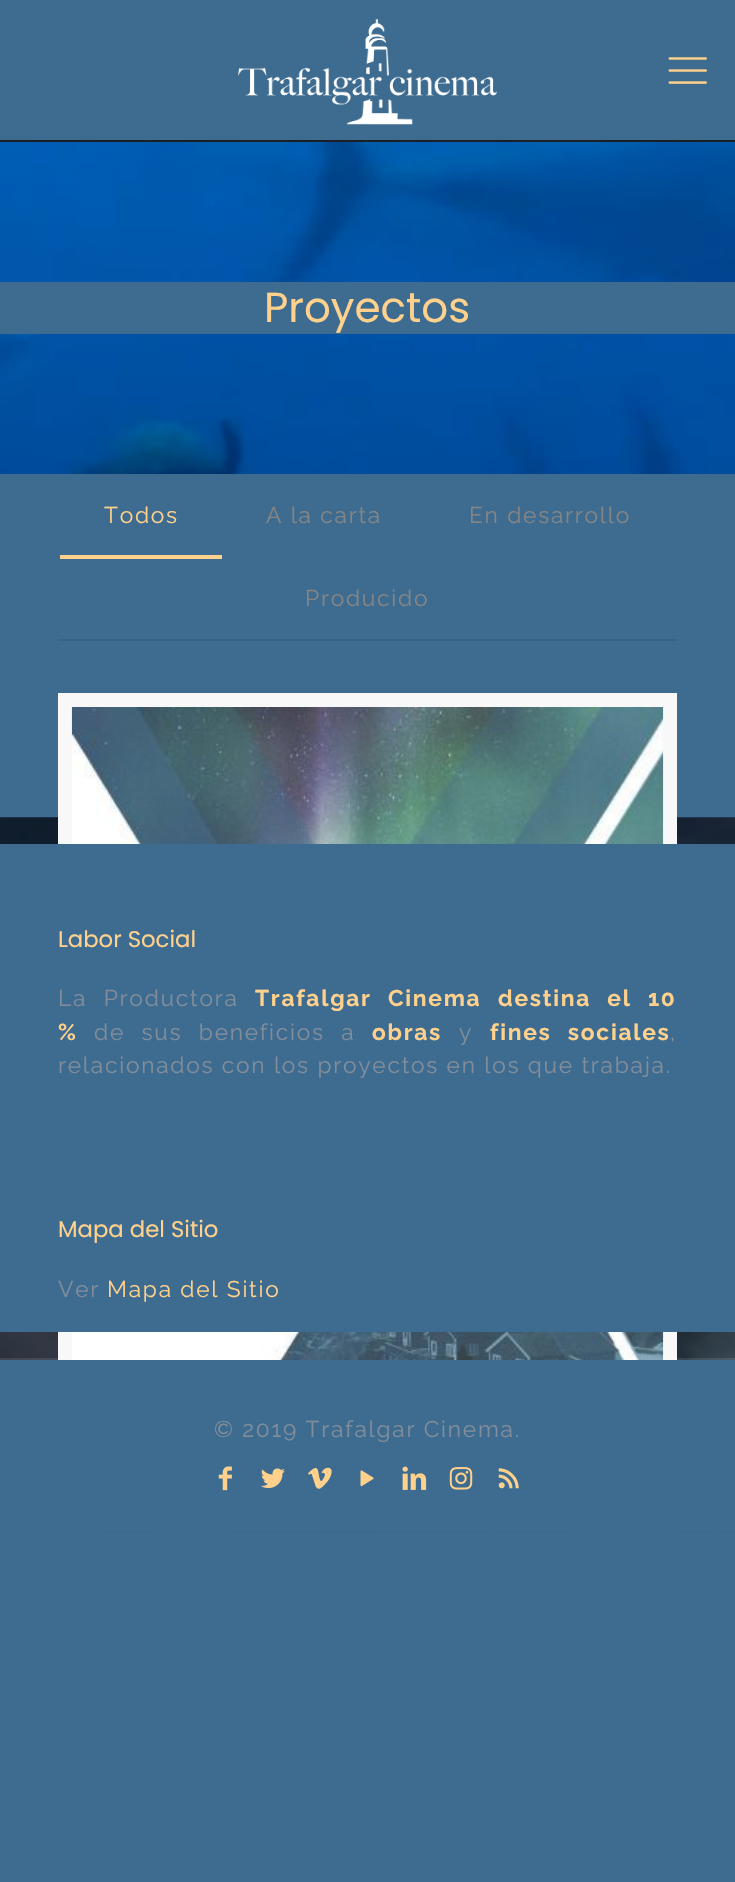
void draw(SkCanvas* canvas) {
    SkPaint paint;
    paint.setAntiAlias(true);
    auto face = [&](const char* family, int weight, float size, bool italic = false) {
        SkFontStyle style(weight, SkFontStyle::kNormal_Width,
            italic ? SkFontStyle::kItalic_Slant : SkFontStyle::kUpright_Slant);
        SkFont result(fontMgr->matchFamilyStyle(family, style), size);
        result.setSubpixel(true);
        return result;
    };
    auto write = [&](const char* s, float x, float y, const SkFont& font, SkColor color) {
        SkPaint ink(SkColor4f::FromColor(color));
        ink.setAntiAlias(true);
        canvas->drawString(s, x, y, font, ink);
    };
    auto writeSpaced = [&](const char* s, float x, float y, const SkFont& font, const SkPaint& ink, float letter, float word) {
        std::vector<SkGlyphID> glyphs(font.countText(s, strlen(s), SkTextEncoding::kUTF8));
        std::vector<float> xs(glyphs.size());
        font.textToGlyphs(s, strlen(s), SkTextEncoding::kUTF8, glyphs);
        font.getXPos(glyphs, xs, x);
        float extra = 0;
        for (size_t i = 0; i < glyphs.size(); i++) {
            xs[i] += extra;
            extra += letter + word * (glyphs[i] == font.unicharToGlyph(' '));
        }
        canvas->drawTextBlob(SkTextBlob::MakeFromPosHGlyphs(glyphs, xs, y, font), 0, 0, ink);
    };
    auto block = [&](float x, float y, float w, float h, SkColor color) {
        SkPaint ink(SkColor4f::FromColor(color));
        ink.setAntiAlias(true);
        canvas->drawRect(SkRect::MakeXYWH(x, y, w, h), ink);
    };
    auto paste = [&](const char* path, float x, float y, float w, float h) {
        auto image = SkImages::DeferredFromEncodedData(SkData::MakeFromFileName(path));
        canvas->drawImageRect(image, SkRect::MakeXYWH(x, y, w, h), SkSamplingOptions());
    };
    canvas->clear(SkColorSetRGB(62, 108, 144));
    paste("pic1.png", 0, 142, 735, 332);
    block(0, 140, 735, 2, SkColorSetRGB(26, 31, 36));
    paste("pic2.png", 238, 19, 259, 106);
    paste("pic3.png", 668, 57, 39, 27);
    block(0, 282, 735, 52, SkColorSetRGB(62, 108, 144));
    auto kFont1 = face("Poppins", 400, 42);
    write("Proyectos", 264, 322, kFont1, SkColorSetRGB(255, 209, 140));
    block(58, 639, 619, 2, SkColorSetRGB(57, 99, 132));
    auto kFont2 = face("Raleway", 400, 22.75f);
    paint.setColor(SkColorSetRGB(255, 209, 140));
    writeSpaced("Todos", 104, 523, kFont2, paint, 1.75f, 0);
    block(60, 555, 162, 4, SkColorSetRGB(255, 209, 140));
    paint.setColor(SkColorSetRGB(133, 133, 133));
    writeSpaced("A la carta", 266, 523, kFont2, paint, 1.75f, 0);
    writeSpaced("En desarrollo", 469, 523, kFont2, paint, 1.75f, 0);
    writeSpaced("Producido", 305, 606, kFont2, paint, 1.75f, 0);
    paste("pic5.png", 0, 817, 735, 715);
    block(0, 1358, 735, 2, SkColorSetARGB(26, 255, 255, 255));
    paint.setStyle(SkPaint::kStroke_Style);
    paint.setStrokeWidth(14);
    paint.setColor(SkColorSetRGB(248, 248, 248));
    canvas->drawRect(SkRect::MakeXYWH(65, 700, 605, 823), paint);
    paste("pic4.png", 71, 707, 593, 653);
    block(0, 844, 735, 488, SkColorSetRGB(62, 108, 144));
    auto kFont3 = face("Poppins", 400, 22.75f);
    write("Labor Social", 58, 947, kFont3, SkColorSetRGB(255, 209, 140));
    paint.setStyle(SkPaint::kFill_Style);
    paint.setColor(SkColorSetRGB(129, 141, 154));
    writeSpaced("La Productora", 58, 1006, kFont2, paint, 1.75f, 9);
    auto kFont4 = face("Raleway", 700, 22.75f);
    paint.setColor(SkColorSetRGB(255, 209, 140));
    writeSpaced("Trafalgar Cinema", 255, 1006, kFont4, paint, 1.75f, 9);
    writeSpaced("destina el 10", 498, 1006, kFont4, paint, 1.75f, 9);
    writeSpaced("%", 58, 1040, kFont4, paint, 1.75f, 0);
    paint.setColor(SkColorSetRGB(129, 141, 154));
    writeSpaced("de sus beneficios a", 94, 1040, kFont2, paint, 1.75f, 9);
    paint.setColor(SkColorSetRGB(255, 209, 140));
    writeSpaced("obras", 372, 1040, kFont4, paint, 1.75f, 0);
    paint.setColor(SkColorSetRGB(129, 141, 154));
    writeSpaced("y", 459, 1040, kFont2, paint, 1.75f, 0);
    paint.setColor(SkColorSetRGB(255, 209, 140));
    writeSpaced("fines sociales", 490, 1040, kFont4, paint, 1.75f, 9);
    paint.setColor(SkColorSetRGB(129, 141, 154));
    writeSpaced(",", 670, 1040, kFont2, paint, 1.75f, 0);
    writeSpaced("relacionados con los proyectos en los que trabaja.", 58, 1073, kFont2, paint, 1.75f, 0);
    write("Mapa del Sitio", 58, 1237, kFont3, SkColorSetRGB(255, 209, 140));
    writeSpaced("Ver", 58, 1297, kFont2, paint, 1.75f, 0);
    paint.setColor(SkColorSetRGB(255, 209, 140));
    writeSpaced("Mapa del Sitio", 107, 1297, kFont2, paint, 1.75f, 0);
    block(0, 1360, 735, 171, SkColorSetRGB(62, 108, 144));
    paint.setColor(SkColorSetRGB(129, 141, 154));
    writeSpaced("© 2019 Trafalgar Cinema.", 214, 1437, kFont2, paint, 1.75f, 0);
    paste("pic6.png", 218, 1466, 14, 25);
    paste("pic7.png", 261, 1468, 24, 21);
    paste("pic8.png", 308, 1467, 24, 22);
    paste("pic9.png", 360, 1470, 14, 17);
    paste("pic10.png", 402, 1466, 25, 24);
    paste("pic11.png", 449, 1467, 24, 23);
    paste("pic12.png", 498, 1468, 21, 21);
}
